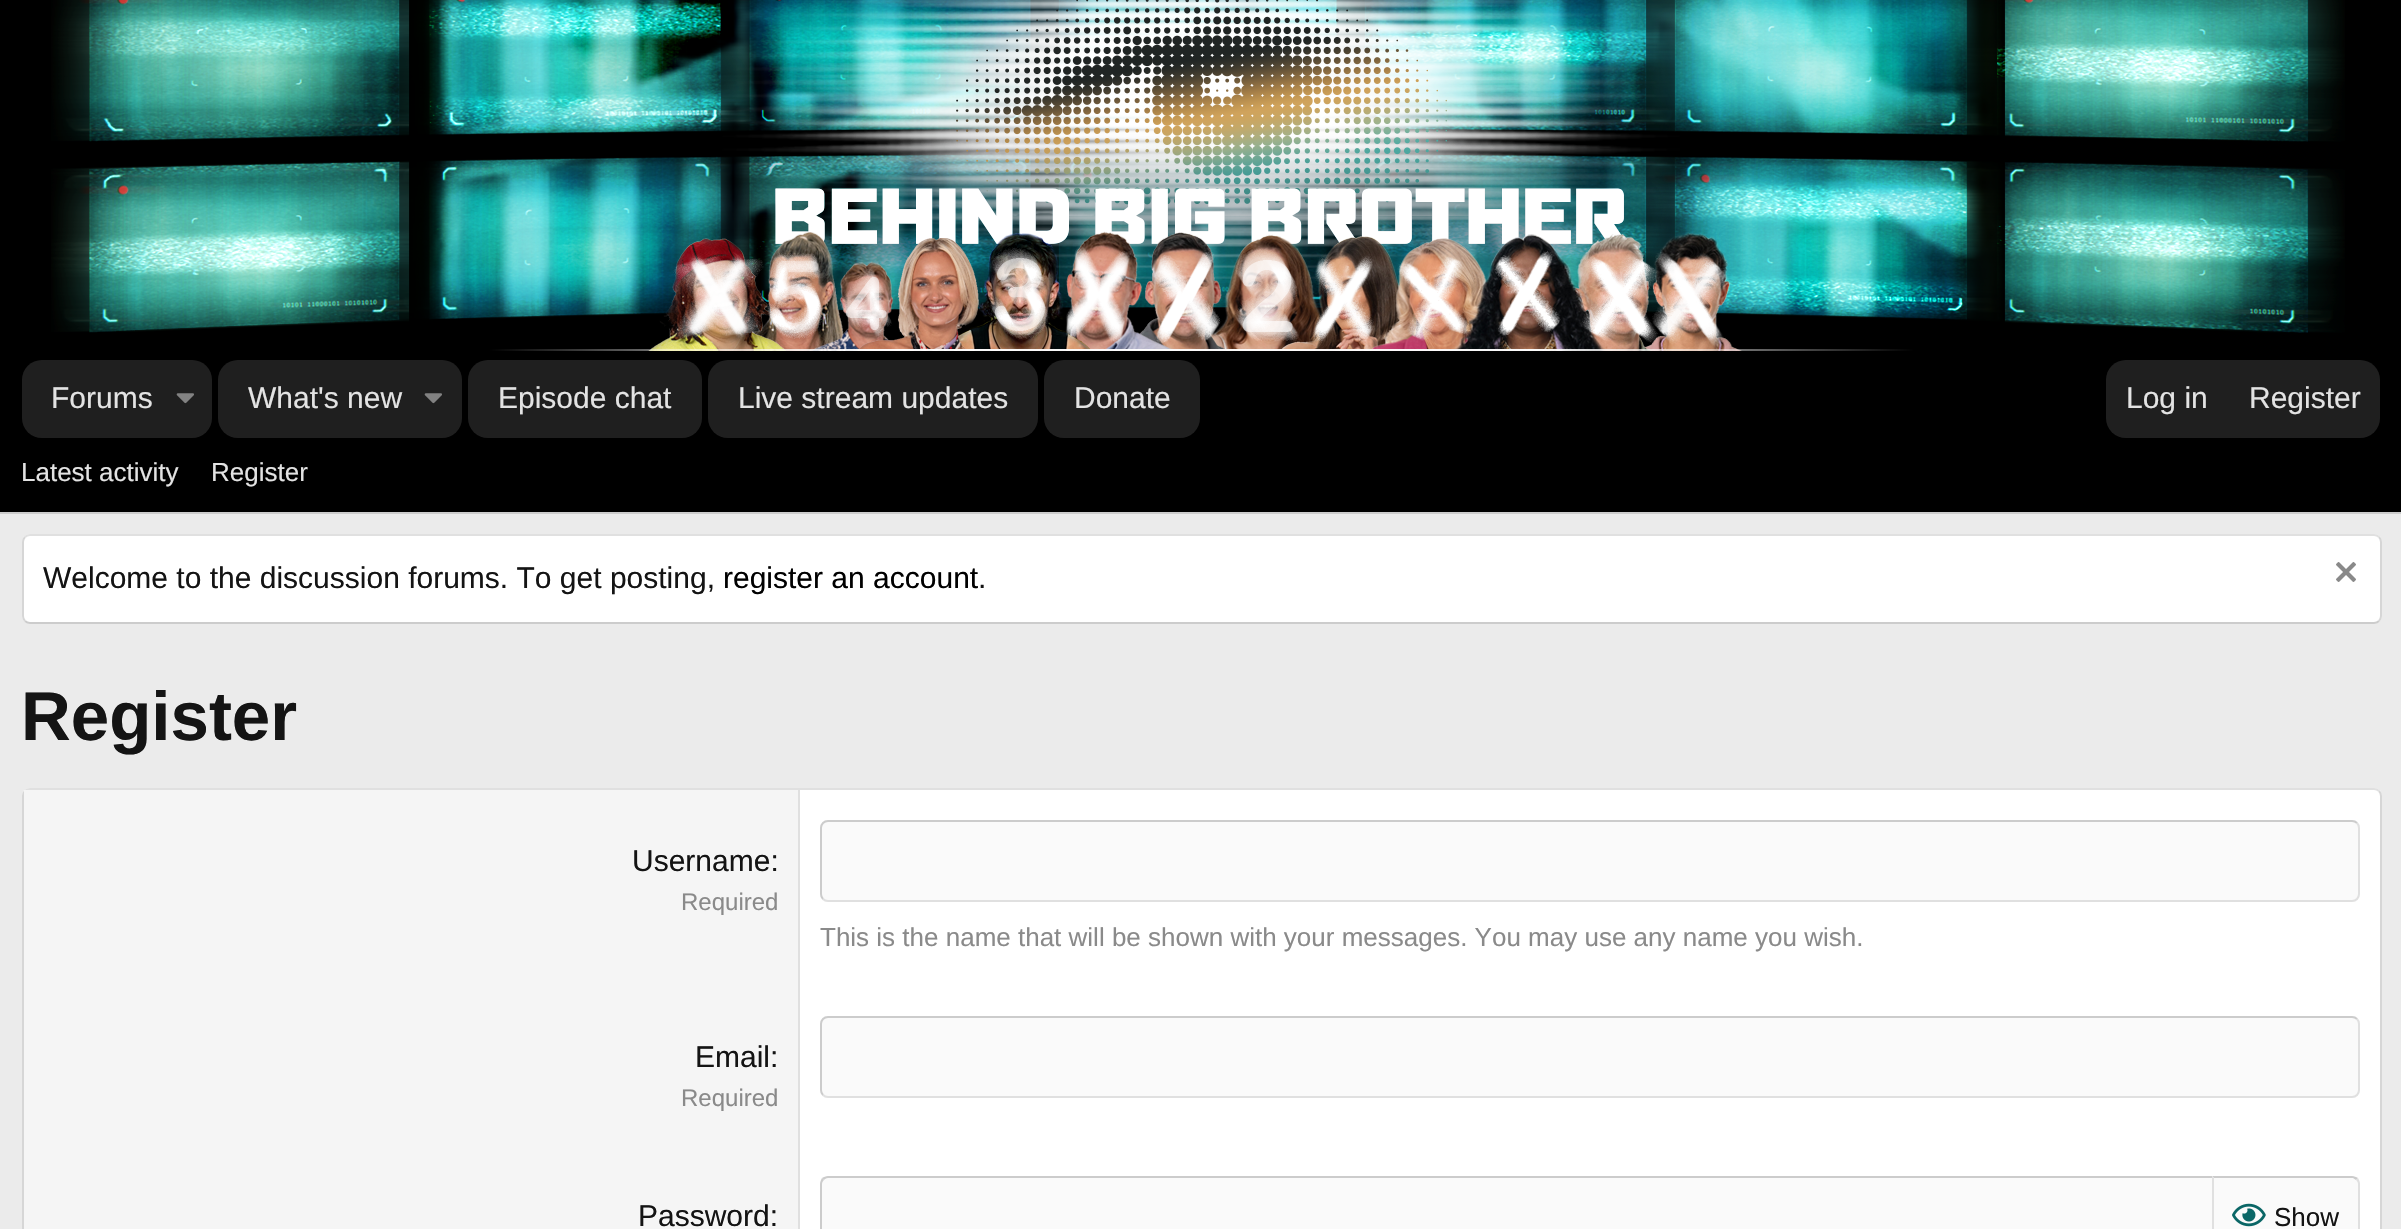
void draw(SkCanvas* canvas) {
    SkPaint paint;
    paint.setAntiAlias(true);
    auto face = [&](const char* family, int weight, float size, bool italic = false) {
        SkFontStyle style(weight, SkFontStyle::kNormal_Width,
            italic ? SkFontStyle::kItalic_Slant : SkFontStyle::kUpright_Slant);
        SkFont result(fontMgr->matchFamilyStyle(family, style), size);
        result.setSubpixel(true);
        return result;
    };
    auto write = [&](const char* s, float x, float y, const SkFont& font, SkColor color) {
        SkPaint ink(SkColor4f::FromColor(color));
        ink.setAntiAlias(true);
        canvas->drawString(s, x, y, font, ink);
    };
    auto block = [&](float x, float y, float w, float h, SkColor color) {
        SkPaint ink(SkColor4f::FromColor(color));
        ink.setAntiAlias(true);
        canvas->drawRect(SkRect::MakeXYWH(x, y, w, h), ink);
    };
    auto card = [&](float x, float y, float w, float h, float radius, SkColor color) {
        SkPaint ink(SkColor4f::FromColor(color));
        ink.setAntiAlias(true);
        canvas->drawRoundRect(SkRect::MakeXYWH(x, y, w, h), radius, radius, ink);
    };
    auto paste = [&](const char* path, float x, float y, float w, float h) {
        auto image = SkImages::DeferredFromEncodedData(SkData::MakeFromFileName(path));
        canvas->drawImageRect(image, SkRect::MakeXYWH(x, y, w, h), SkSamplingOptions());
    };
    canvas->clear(SkColorSetRGB(235, 235, 235));
    block(0, 0, 2401, 360, SK_ColorBLACK);
    paste("pic1.png", 51, 0, 2294, 351);
    block(0, 360, 2401, 152, SK_ColorBLACK);
    card(22, 360, 190, 78, 20, SkColorSetRGB(31, 31, 31));
    auto kFont1 = face("Liberation Sans", 400, 30);
    write("Forums", 51, 408, kFont1, SkColorSetRGB(227, 227, 227));
    paste("pic2.png", 176, 393, 18, 11);
    card(218, 360, 244, 78, 20, SkColorSetRGB(31, 31, 31));
    write("What's new", 248, 408, kFont1, SkColorSetRGB(227, 227, 227));
    paste("pic2.png", 424, 393, 18, 11);
    card(468, 360, 234, 78, 20, SkColorSetRGB(31, 31, 31));
    write("Episode chat", 498, 408, kFont1, SkColorSetRGB(227, 227, 227));
    card(708, 360, 330, 78, 20, SkColorSetRGB(31, 31, 31));
    write("Live stream updates", 738, 408, kFont1, SkColorSetRGB(227, 227, 227));
    card(1044, 360, 156, 78, 20, SkColorSetRGB(31, 31, 31));
    write("Donate", 1074, 408, kFont1, SkColorSetRGB(227, 227, 227));
    card(2106, 360, 274, 78, 20, SkColorSetRGB(31, 31, 31));
    write("Log in", 2126, 408, kFont1, SkColorSetRGB(227, 227, 227));
    write("Register", 2249, 408, kFont1, SkColorSetRGB(227, 227, 227));
    block(0, 512, 2401, 2, SkColorSetRGB(204, 204, 204));
    auto kFont2 = face("Liberation Sans", 400, 26);
    write("Latest activity", 21, 481, kFont2, SkColorSetRGB(227, 227, 227));
    write("Register", 211, 481, kFont2, SkColorSetRGB(227, 227, 227));
    card(22, 534, 2360, 90, 8, SK_ColorWHITE);
    paint.setStyle(SkPaint::kStroke_Style);
    paint.setStrokeWidth(2);
    paint.setColor(SkColorSetRGB(224, 224, 224));
    canvas->drawPath(SkPathBuilder().moveTo(25, 537).cubicTo(26.5f, 535.5f, 28, 535, 30, 535).lineTo(2374, 535).cubicTo(2376, 535, 2377.5f, 535.5f, 2379, 537).detach(), paint);
    paint.setColor(SkColorSetRGB(214, 214, 214));
    canvas->drawPath(SkPathBuilder().moveTo(2379, 537).cubicTo(2380.5f, 538.5f, 2381, 540, 2381, 542).lineTo(2381, 616).cubicTo(2381, 618, 2380.5f, 619.5f, 2379, 621).detach(), paint);
    paint.setColor(SkColorSetRGB(204, 204, 204));
    canvas->drawPath(SkPathBuilder().moveTo(2379, 621).cubicTo(2377.5f, 622.5f, 2376, 623, 2374, 623).lineTo(30, 623).cubicTo(28, 623, 26.5f, 622.5f, 25, 621).detach(), paint);
    paint.setColor(SkColorSetRGB(214, 214, 214));
    canvas->drawPath(SkPathBuilder().moveTo(25, 621).cubicTo(23.5f, 619.5f, 23, 618, 23, 616).lineTo(23, 542).cubicTo(23, 540, 23.5f, 538.5f, 25, 537).detach(), paint);
    write("Welcome to the discussion forums. To get posting,", 43, 588, kFont1, SkColorSetRGB(20, 20, 20));
    write("register an account", 723, 588, kFont1, SK_ColorBLACK);
    write(".", 978, 588, kFont1, SkColorSetRGB(20, 20, 20));
    paste("pic3.png", 2336, 562, 20, 20);
    auto kFont3 = face("Liberation Sans", 700, 69);
    write("Register", 21, 740, kFont3, SkColorSetRGB(20, 20, 20));
    card(22, 788, 2360, 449, 8, SK_ColorWHITE);
    paint.setColor(SkColorSetRGB(224, 224, 224));
    canvas->drawPath(SkPathBuilder().moveTo(25, 791).cubicTo(26.5f, 789.5f, 28, 789, 30, 789).lineTo(2374, 789).cubicTo(2376, 789, 2377.5f, 789.5f, 2379, 791).detach(), paint);
    paint.setColor(SkColorSetRGB(214, 214, 214));
    canvas->drawPath(SkPathBuilder().moveTo(2379, 791).cubicTo(2380.5f, 792.5f, 2381, 794, 2381, 796).lineTo(2381, 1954).cubicTo(2381, 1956, 2380.5f, 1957.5f, 2379, 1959).detach(), paint);
    canvas->drawPath(SkPathBuilder().moveTo(25, 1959).cubicTo(23.5f, 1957.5f, 23, 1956, 23, 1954).lineTo(23, 796).cubicTo(23, 794, 23.5f, 792.5f, 25, 791).detach(), paint);
    block(24, 790, 774, 439, SkColorSetRGB(245, 245, 245));
    block(798, 790, 2, 439, SkColorSetRGB(224, 224, 224));
    write("Username:", 632, 871, kFont1, SkColorSetRGB(20, 20, 20));
    auto kFont4 = face("Liberation Sans", 400, 24);
    write("Required", 681, 910, kFont4, SkColorSetRGB(138, 138, 138));
    card(820, 820, 1540, 82, 8, SkColorSetRGB(250, 250, 250));
    paint.setColor(SkColorSetRGB(224, 224, 224));
    canvas->drawPath(SkPathBuilder().moveTo(2357, 823).cubicTo(2358.5f, 824.5f, 2359, 826, 2359, 828).lineTo(2359, 894).cubicTo(2359, 896, 2358.5f, 897.5f, 2357, 899).cubicTo(2355.5f, 900.5f, 2354, 901, 2352, 901).lineTo(828, 901).cubicTo(826, 901, 824.5f, 900.5f, 823, 899).detach(), paint);
    paint.setColor(SkColorSetRGB(204, 204, 204));
    canvas->drawPath(SkPathBuilder().moveTo(823, 899).cubicTo(821.5f, 897.5f, 821, 896, 821, 894).lineTo(821, 828).cubicTo(821, 826, 821.5f, 824.5f, 823, 823).cubicTo(824.5f, 821.5f, 826, 821, 828, 821).lineTo(2352, 821).cubicTo(2354, 821, 2355.5f, 821.5f, 2357, 823).detach(), paint);
    write("This is the name that will be shown with your messages. You may use any name you wish.", 820, 946, kFont2, SkColorSetRGB(138, 138, 138));
    write("Email:", 695, 1067, kFont1, SkColorSetRGB(20, 20, 20));
    write("Required", 681, 1106, kFont4, SkColorSetRGB(138, 138, 138));
    card(820, 1016, 1540, 82, 8, SkColorSetRGB(250, 250, 250));
    paint.setColor(SkColorSetRGB(224, 224, 224));
    canvas->drawPath(SkPathBuilder().moveTo(2357, 1019).cubicTo(2358.5f, 1020.5f, 2359, 1022, 2359, 1024).lineTo(2359, 1090).cubicTo(2359, 1092, 2358.5f, 1093.5f, 2357, 1095).cubicTo(2355.5f, 1096.5f, 2354, 1097, 2352, 1097).lineTo(828, 1097).cubicTo(826, 1097, 824.5f, 1096.5f, 823, 1095).detach(), paint);
    paint.setColor(SkColorSetRGB(204, 204, 204));
    canvas->drawPath(SkPathBuilder().moveTo(823, 1095).cubicTo(821.5f, 1093.5f, 821, 1092, 821, 1090).lineTo(821, 1024).cubicTo(821, 1022, 821.5f, 1020.5f, 823, 1019).cubicTo(824.5f, 1017.5f, 826, 1017, 828, 1017).lineTo(2352, 1017).cubicTo(2354, 1017, 2355.5f, 1017.5f, 2357, 1019).detach(), paint);
    write("Password:", 638, 1226, kFont1, SkColorSetRGB(20, 20, 20));
    paint.setStyle(SkPaint::kFill_Style);
    paint.setColor(SkColorSetRGB(250, 250, 250));
    canvas->drawPath(SkPathBuilder().moveTo(828, 1176).lineTo(2212, 1176).lineTo(2212, 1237).lineTo(828, 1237).cubicTo(823.5f, 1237, 820, 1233.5f, 820, 1229).lineTo(820, 1184).cubicTo(820, 1179.5f, 823.5f, 1176, 828, 1176).close().detach(), paint);
    paint.setColor(SkColorSetRGB(204, 204, 204));
    canvas->drawPath(SkPathBuilder().moveTo(828, 1176).cubicTo(826, 1176, 824, 1177, 822, 1178).lineTo(824, 1180).cubicTo(825, 1179, 826, 1178, 828, 1178).lineTo(2212, 1178).lineTo(2212, 1176).close().detach(), paint);
    canvas->drawPath(SkPathBuilder().moveTo(820, 1184).lineTo(820, 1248).cubicTo(820, 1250, 821, 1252, 822, 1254).lineTo(824, 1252).cubicTo(823, 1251, 822, 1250, 822, 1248).lineTo(822, 1184).cubicTo(822, 1182, 823, 1181, 824, 1180).lineTo(822, 1178).cubicTo(821, 1180, 820, 1182, 820, 1184).close().detach(), paint);
    paint.setColor(SkColorSetRGB(250, 250, 250));
    canvas->drawPath(SkPathBuilder().moveTo(2212, 1176).lineTo(2352, 1176).cubicTo(2356.5f, 1176, 2360, 1179.5f, 2360, 1184).lineTo(2360, 1229).cubicTo(2360, 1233.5f, 2356.5f, 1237, 2352, 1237).lineTo(2212, 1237).close().detach(), paint);
    paint.setColor(SkColorSetRGB(204, 204, 204));
    canvas->drawPath(SkPathBuilder().moveTo(2212, 1176).lineTo(2214, 1178).lineTo(2353, 1178).lineTo(2356, 1180).lineTo(2358, 1178).cubicTo(2356, 1177, 2354, 1176, 2352, 1176).close().detach(), paint);
    paint.setColor(SkColorSetRGB(224, 224, 224));
    canvas->drawPath(SkPathBuilder().moveTo(2360, 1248).lineTo(2360, 1184).cubicTo(2360, 1182, 2359, 1180, 2358, 1178).lineTo(2356, 1180).cubicTo(2357, 1181, 2358, 1182, 2358, 1184).lineTo(2358, 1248).cubicTo(2358, 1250, 2357, 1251, 2356, 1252).lineTo(2358, 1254).cubicTo(2359, 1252, 2360, 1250, 2360, 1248).close().detach(), paint);
    canvas->drawPath(SkPathBuilder().moveTo(2212, 1176).lineTo(2212, 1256).lineTo(2214, 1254).lineTo(2214, 1178).close().detach(), paint);
    paste("pic4.png", 2232, 1203, 34, 24);
    write("Show", 2274, 1226, kFont2, SkColorSetRGB(20, 20, 20));
}
